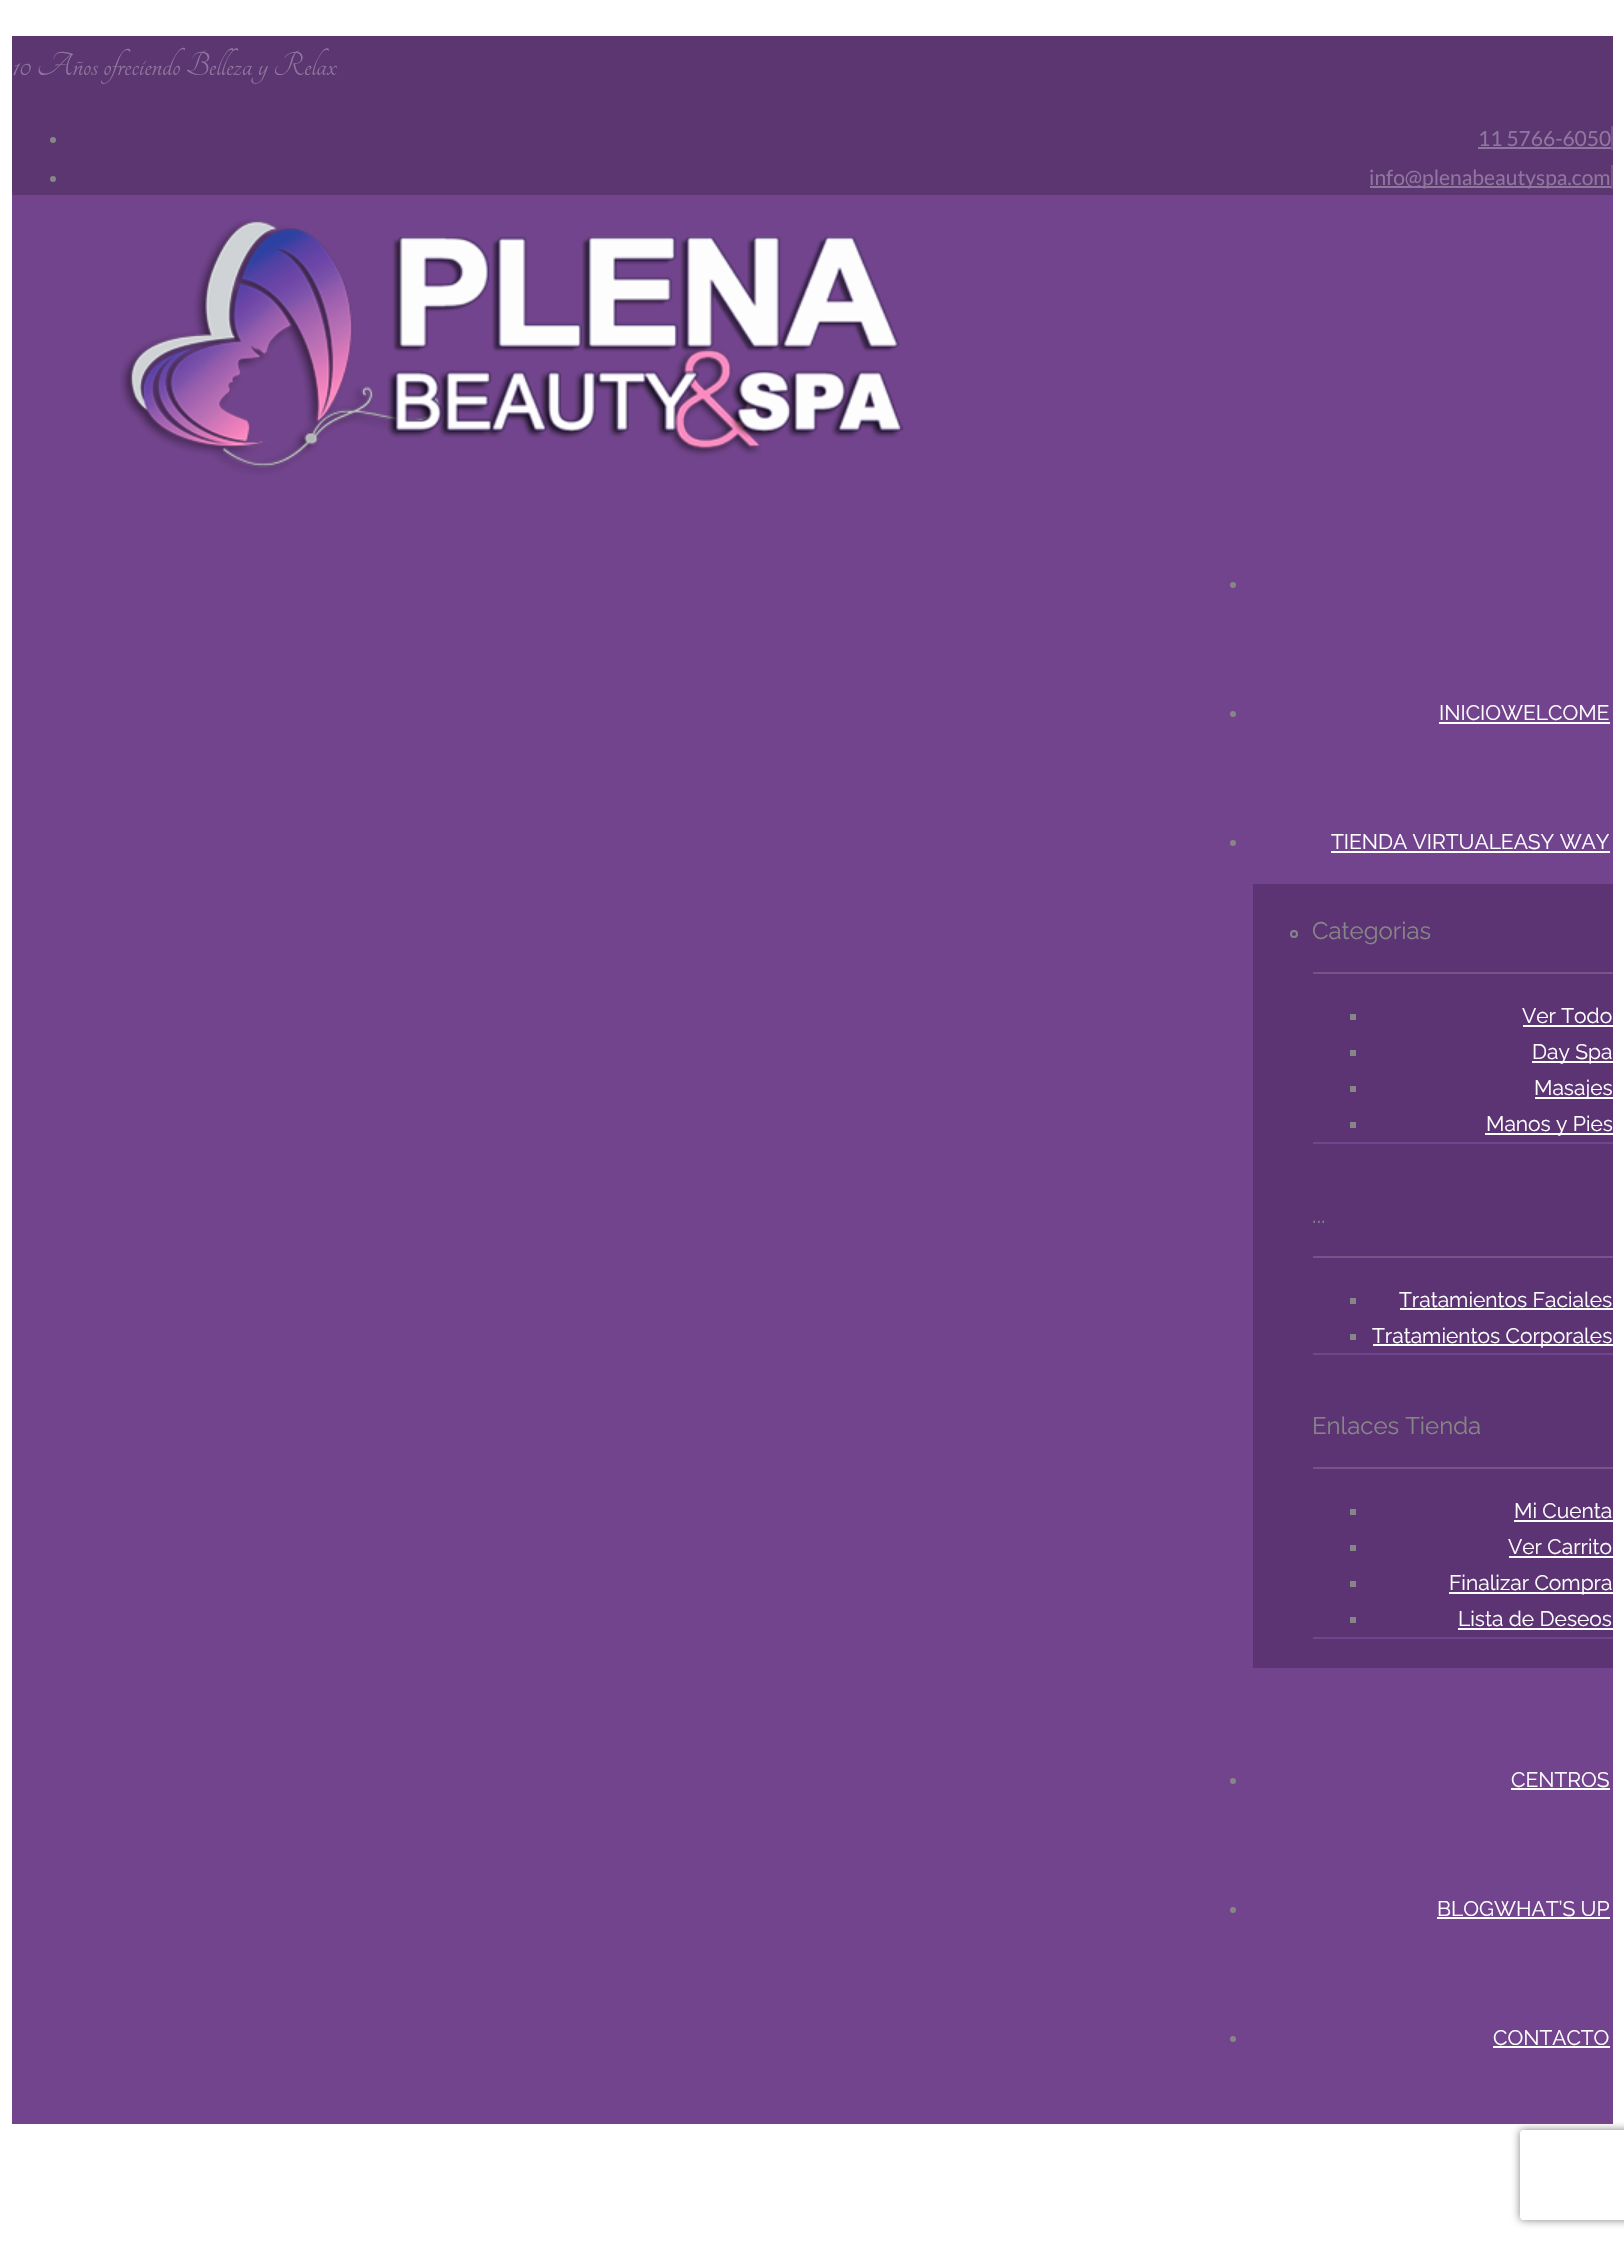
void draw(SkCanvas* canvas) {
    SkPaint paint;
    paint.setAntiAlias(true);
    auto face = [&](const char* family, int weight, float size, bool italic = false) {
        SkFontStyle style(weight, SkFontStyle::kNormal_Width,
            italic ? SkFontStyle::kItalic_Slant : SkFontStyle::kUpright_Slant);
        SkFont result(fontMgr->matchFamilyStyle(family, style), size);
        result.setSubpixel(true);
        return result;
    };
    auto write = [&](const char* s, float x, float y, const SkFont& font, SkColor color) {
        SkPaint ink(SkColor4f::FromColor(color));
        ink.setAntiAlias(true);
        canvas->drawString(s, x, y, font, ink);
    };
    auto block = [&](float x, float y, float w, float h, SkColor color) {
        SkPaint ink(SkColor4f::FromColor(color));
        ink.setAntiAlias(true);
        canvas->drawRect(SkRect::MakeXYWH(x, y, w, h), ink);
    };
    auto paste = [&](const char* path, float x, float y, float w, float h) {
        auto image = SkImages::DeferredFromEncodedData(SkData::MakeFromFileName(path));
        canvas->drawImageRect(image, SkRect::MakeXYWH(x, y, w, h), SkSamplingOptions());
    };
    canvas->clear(SK_ColorWHITE);
    block(12, 195, 1601, 1929, SkColorSetRGB(114, 68, 141));
    block(12, 36, 1601, 159, SkColorSetRGB(91, 54, 112));
    auto kFont1 = face("Tangerine", 400, 36);
    write("10 Años ofreciendo Belleza y Relax", 12, 75, kFont1, SkColorSetRGB(143, 118, 158));
    paint.setColor(SkColorSetRGB(134, 134, 134));
    canvas->drawCircle(53, 140, 3, paint);
    auto kFont2 = face("Lato", 400, 21);
    write("11 5766-6050", 1478, 146, kFont2, SkColorSetRGB(143, 118, 158));
    block(1478, 147, 133, 2, SkColorSetRGB(143, 118, 158));
    block(1611, 126, 2, 24, SkColorSetRGB(116, 84, 133));
    canvas->drawCircle(53, 179, 3, paint);
    block(1370, 186, 241, 2, SkColorSetRGB(143, 118, 158));
    write("info@plenabeautyspa.com", 1369, 185, kFont2, SkColorSetRGB(143, 118, 158));
    block(1611, 165, 2, 24, SkColorSetRGB(116, 84, 133));
    paste("pic1.png", 120, 219, 784, 256);
    canvas->drawCircle(1233, 585, 3, paint);
    canvas->drawCircle(1233, 714, 3, paint);
    auto kFont3 = face("Raleway", 400, 21);
    write("INICIOWELCOME", 1439, 720, kFont3, SK_ColorWHITE);
    block(1439, 722, 171, 2, SK_ColorWHITE);
    canvas->drawCircle(1233, 843, 3, paint);
    write("TIENDA VIRTUALEASY WAY", 1331, 849, kFont3, SK_ColorWHITE);
    block(1331, 851, 279, 2, SK_ColorWHITE);
    block(1253, 884, 360, 784, SkColorSetRGB(92, 52, 116));
    paint.setStyle(SkPaint::kStroke_Style);
    paint.setStrokeWidth(2);
    canvas->drawCircle(1294, 934, 3, paint);
    block(1313, 972, 300, 2, SkColorSetRGB(118, 84, 138));
    auto kFont4 = face("Raleway", 400, 24);
    write("Categorias", 1312, 939, kFont4, SkColorSetRGB(134, 134, 134));
    block(1313, 1142, 300, 2, SkColorSetRGB(114, 68, 141));
    block(1350, 1014, 6, 6, SkColorSetRGB(134, 134, 134));
    write("Ver Todo", 1522, 1023, kFont3, SK_ColorWHITE);
    block(1523, 1025, 90, 2, SK_ColorWHITE);
    block(1350, 1050, 6, 6, SkColorSetRGB(134, 134, 134));
    block(1532, 1061, 81, 2, SK_ColorWHITE);
    write("Day Spa", 1532, 1059, kFont3, SK_ColorWHITE);
    block(1350, 1086, 6, 6, SkColorSetRGB(134, 134, 134));
    block(1535, 1097, 78, 2, SK_ColorWHITE);
    write("Masajes", 1534, 1095, kFont3, SK_ColorWHITE);
    block(1350, 1122, 6, 6, SkColorSetRGB(134, 134, 134));
    block(1485, 1133, 128, 2, SK_ColorWHITE);
    write("Manos y Pies", 1486, 1131, kFont3, SK_ColorWHITE);
    block(1313, 1256, 300, 2, SkColorSetRGB(118, 84, 138));
    write("...", 1312, 1223, kFont4, SkColorSetRGB(134, 134, 134));
    block(1313, 1353, 300, 2, SkColorSetRGB(114, 68, 141));
    block(1350, 1298, 6, 6, SkColorSetRGB(134, 134, 134));
    write("Tratamientos Faciales", 1399, 1307, kFont3, SK_ColorWHITE);
    block(1400, 1308, 213, 2, SK_ColorWHITE);
    block(1350, 1334, 6, 6, SkColorSetRGB(134, 134, 134));
    block(1373, 1344, 240, 2, SK_ColorWHITE);
    write("Tratamientos Corporales", 1372, 1343, kFont3, SK_ColorWHITE);
    block(1313, 1467, 300, 2, SkColorSetRGB(118, 84, 138));
    write("Enlaces Tienda", 1312, 1434, kFont4, SkColorSetRGB(134, 134, 134));
    block(1313, 1637, 300, 2, SkColorSetRGB(114, 68, 141));
    block(1350, 1509, 6, 6, SkColorSetRGB(134, 134, 134));
    write("Mi Cuenta", 1514, 1518, kFont3, SK_ColorWHITE);
    block(1514, 1520, 99, 2, SK_ColorWHITE);
    block(1350, 1545, 6, 6, SkColorSetRGB(134, 134, 134));
    write("Ver Carrito", 1508, 1554, kFont3, SK_ColorWHITE);
    block(1509, 1556, 104, 2, SK_ColorWHITE);
    block(1350, 1581, 6, 6, SkColorSetRGB(134, 134, 134));
    block(1449, 1592, 164, 2, SK_ColorWHITE);
    write("Finalizar Compra", 1449, 1590, kFont3, SK_ColorWHITE);
    block(1350, 1617, 6, 6, SkColorSetRGB(134, 134, 134));
    write("Lista de Deseos", 1458, 1626, kFont3, SK_ColorWHITE);
    block(1458, 1628, 155, 2, SK_ColorWHITE);
    paint.setStyle(SkPaint::kFill_Style);
    canvas->drawCircle(1233, 1781, 3, paint);
    write("CENTROS", 1511, 1787, kFont3, SK_ColorWHITE);
    block(1511, 1788, 99, 2, SK_ColorWHITE);
    canvas->drawCircle(1233, 1910, 3, paint);
    write("BLOGWHAT’S UP", 1437, 1916, kFont3, SK_ColorWHITE);
    block(1437, 1917, 173, 2, SK_ColorWHITE);
    canvas->drawCircle(1233, 2039, 3, paint);
    write("CONTACTO", 1493, 2045, kFont3, SK_ColorWHITE);
    block(1493, 2046, 117, 2, SK_ColorWHITE);
    canvas->save();
    canvas->clipPath(SkPathBuilder(SkPathFillType::kEvenOdd).moveTo(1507, 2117).lineTo(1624, 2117).lineTo(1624, 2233).lineTo(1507, 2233).close().moveTo(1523, 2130).lineTo(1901, 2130).cubicTo(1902.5f, 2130, 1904, 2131.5f, 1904, 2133).lineTo(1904, 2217).cubicTo(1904, 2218.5f, 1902.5f, 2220, 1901, 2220).lineTo(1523, 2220).cubicTo(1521.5f, 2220, 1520, 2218.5f, 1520, 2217).lineTo(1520, 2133).cubicTo(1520, 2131.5f, 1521.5f, 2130, 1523, 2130).close().detach(), true);
    paint.setColor(SkColorSetRGB(128, 128, 128));
    paint.setMaskFilter(SkMaskFilter::MakeBlur(kNormal_SkBlurStyle, 4));
    canvas->drawRoundRect(SkRect::MakeXYWH(1520, 2130, 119, 90), 3, 3, paint);
    paint.setMaskFilter(nullptr);
    canvas->restore();
}
